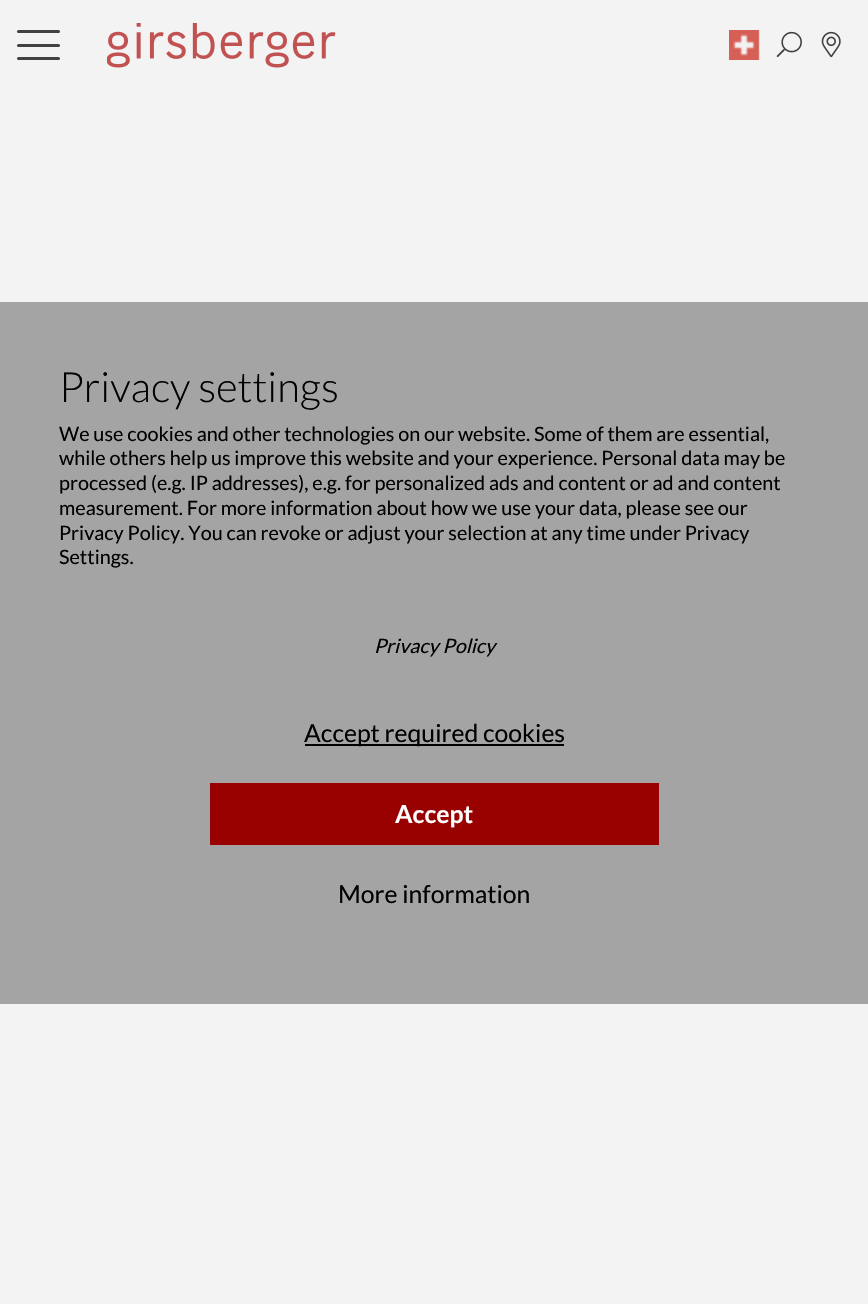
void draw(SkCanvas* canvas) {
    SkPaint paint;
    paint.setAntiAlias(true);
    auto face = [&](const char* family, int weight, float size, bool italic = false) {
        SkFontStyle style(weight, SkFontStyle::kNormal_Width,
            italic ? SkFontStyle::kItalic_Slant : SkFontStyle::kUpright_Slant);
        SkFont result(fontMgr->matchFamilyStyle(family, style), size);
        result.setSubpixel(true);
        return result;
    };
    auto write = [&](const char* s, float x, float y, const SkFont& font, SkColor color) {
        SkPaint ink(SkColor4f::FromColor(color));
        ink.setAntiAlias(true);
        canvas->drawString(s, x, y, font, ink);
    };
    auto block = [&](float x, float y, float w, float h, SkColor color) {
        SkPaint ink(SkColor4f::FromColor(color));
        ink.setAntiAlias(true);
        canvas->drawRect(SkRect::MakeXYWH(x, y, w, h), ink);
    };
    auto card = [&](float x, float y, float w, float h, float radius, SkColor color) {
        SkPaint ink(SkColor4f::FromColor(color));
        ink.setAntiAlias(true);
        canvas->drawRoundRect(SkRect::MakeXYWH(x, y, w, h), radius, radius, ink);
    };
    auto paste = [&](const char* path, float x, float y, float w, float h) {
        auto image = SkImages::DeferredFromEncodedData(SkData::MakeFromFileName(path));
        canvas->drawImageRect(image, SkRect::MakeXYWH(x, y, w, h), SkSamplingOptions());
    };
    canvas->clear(SkColorSetRGB(243, 243, 243));
    card(17, 44, 43, 3, 1.5f, SkColorSetRGB(65, 65, 65));
    card(17, 30, 43, 3, 1.5f, SkColorSetRGB(65, 65, 65));
    card(17, 57, 43, 3, 1.5f, SkColorSetRGB(65, 65, 65));
    paste("pic1.png", 107, 23, 229, 45);
    paste("pic2.png", 729, 30, 31, 30);
    paste("pic3.png", 776, 31, 26, 27);
    paste("pic4.png", 821, 31, 20, 27);
    block(0, 302, 868, 702, SkColorSetRGB(164, 164, 164));
    auto kFont1 = face("Lato", 300, 41.75f);
    write("Privacy settings", 59, 402, kFont1, SK_ColorBLACK);
    auto kFont2 = face("Lato", 400, 19.8f);
    write("We use cookies and other technologies on our website. Some of them are essential,", 59, 441, kFont2, SK_ColorBLACK);
    write("while others help us improve this website and your experience. Personal data may be", 59, 465, kFont2, SK_ColorBLACK);
    write("processed (e.g. IP addresses), e.g. for personalized ads and content or ad and content", 59, 490, kFont2, SK_ColorBLACK);
    write("measurement. For more information about how we use your data, please see our", 59, 515, kFont2, SK_ColorBLACK);
    write("Privacy Policy. You can revoke or adjust your selection at any time under Privacy", 59, 540, kFont2, SK_ColorBLACK);
    write("Settings.", 59, 564, kFont2, SK_ColorBLACK);
    auto kFont3 = face("Lato", 400, 19.8f, true);
    write("Privacy Policy", 374, 653, kFont3, SK_ColorBLACK);
    block(305, 744, 259, 2, SK_ColorBLACK);
    auto kFont4 = face("Lato", 400, 24.75f);
    write("Accept required cookies", 304, 742, kFont4, SK_ColorBLACK);
    block(210, 783, 449, 62, SkColorSetRGB(153, 0, 0));
    auto kFont5 = face("Lato", 700, 24.75f);
    write("Accept", 395, 823, kFont5, SK_ColorWHITE);
    write("More information", 338, 903, kFont4, SK_ColorBLACK);
}
